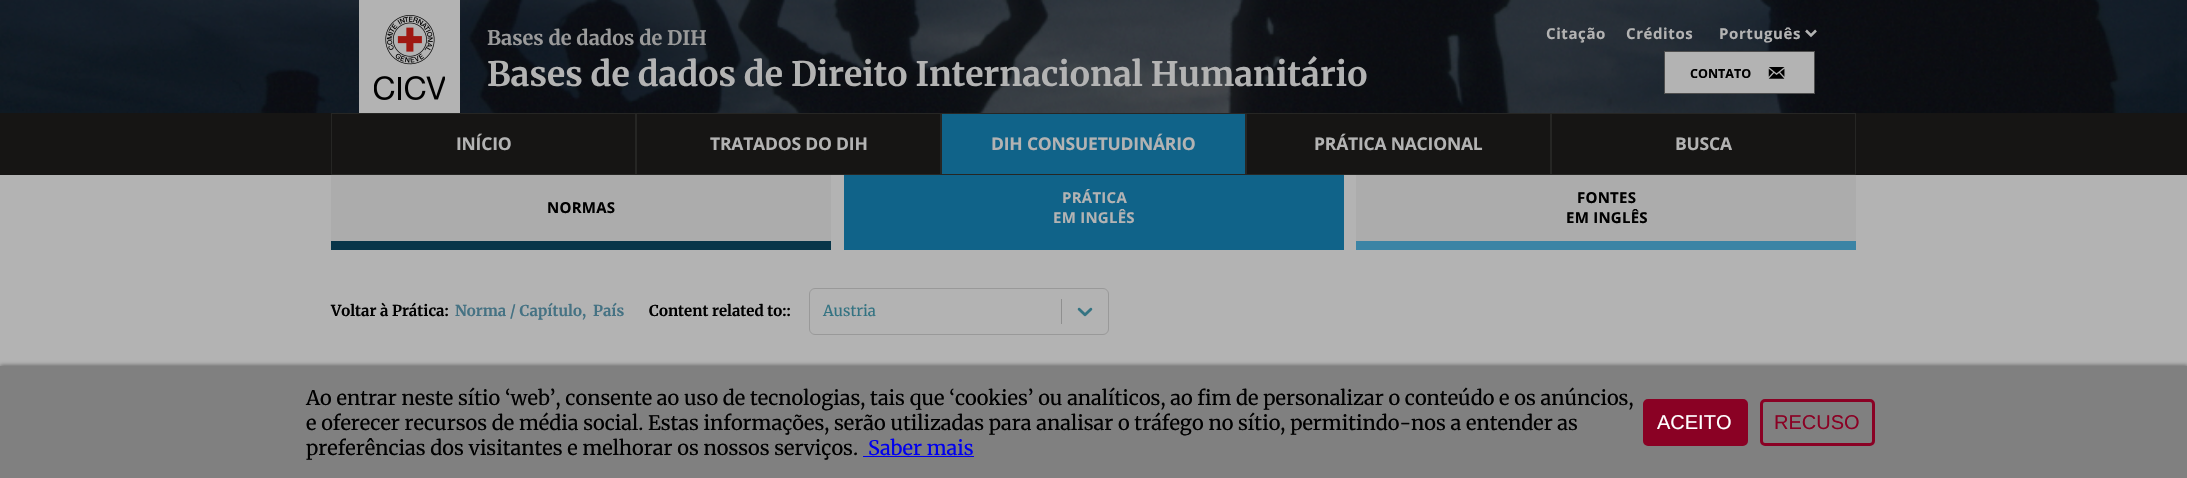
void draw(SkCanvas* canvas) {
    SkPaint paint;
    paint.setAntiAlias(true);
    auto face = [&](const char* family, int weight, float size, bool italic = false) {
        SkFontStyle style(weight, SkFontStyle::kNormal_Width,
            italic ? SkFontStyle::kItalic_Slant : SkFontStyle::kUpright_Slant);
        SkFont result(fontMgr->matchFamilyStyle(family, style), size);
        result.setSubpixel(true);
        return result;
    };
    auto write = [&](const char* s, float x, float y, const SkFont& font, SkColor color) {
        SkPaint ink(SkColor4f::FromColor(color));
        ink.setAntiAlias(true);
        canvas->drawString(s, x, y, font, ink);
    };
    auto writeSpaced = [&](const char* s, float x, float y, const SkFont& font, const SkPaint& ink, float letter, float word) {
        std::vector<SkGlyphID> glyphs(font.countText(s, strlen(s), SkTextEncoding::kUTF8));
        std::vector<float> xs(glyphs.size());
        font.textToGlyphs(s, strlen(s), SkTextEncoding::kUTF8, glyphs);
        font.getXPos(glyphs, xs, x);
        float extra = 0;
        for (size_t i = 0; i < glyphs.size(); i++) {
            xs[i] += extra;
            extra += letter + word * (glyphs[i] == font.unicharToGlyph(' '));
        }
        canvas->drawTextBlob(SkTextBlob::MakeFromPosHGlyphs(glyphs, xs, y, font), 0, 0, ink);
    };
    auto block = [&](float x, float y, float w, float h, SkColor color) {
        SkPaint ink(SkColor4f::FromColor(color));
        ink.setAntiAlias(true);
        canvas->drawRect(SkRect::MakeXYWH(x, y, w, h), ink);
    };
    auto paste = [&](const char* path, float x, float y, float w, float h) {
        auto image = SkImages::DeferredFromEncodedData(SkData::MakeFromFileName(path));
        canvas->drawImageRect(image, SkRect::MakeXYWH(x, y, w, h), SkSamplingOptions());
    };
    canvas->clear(SkColorSetRGB(179, 179, 179));
    paste("pic1.png", 0, 0, 2187, 113);
    block(359, 0, 101, 113, SkColorSetRGB(179, 179, 179));
    paste("pic2.png", 374, 15, 71, 85);
    auto kFont1 = face("Merriweather", 700, 20);
    write("Bases de dados de DIH", 487, 45, kFont1, SkColorSetRGB(154, 154, 154));
    auto kFont2 = face("Merriweather", 700, 33.75f);
    write("Bases de dados de Direito Internacional Humanitário", 487, 86, kFont2, SkColorSetRGB(179, 179, 179));
    auto kFont3 = face("Open Sans", 700, 15);
    paint.setColor(SkColorSetRGB(179, 179, 179));
    writeSpaced("Citação", 1546, 39, kFont3, paint, 0.6f, 0);
    writeSpaced("Créditos", 1626, 39, kFont3, paint, 0.6f, 0);
    paint.setStyle(SkPaint::kStroke_Style);
    paint.setStrokeWidth(2.5f);
    canvas->drawPath(SkPathBuilder().moveTo(1806, 30.5f).lineTo(1811, 35.5f).lineTo(1816, 30.5f).detach(), paint);
    paint.setStyle(SkPaint::kFill_Style);
    writeSpaced("Português", 1719, 39, kFont3, paint, 0.6f, 0);
    canvas->drawRect(SkRect::MakeXYWH(1664.5f, 51.5f, 150, 42), paint);
    paint.setStyle(SkPaint::kStroke_Style);
    paint.setStrokeWidth(1);
    paint.setColor(SkColorSetRGB(78, 78, 78));
    canvas->drawRect(SkRect::MakeXYWH(1664.5f, 51.5f, 150, 42), paint);
    auto kFont4 = face("Open Sans", 700, 12.5f);
    write("CONTATO", 1690, 78, kFont4, SK_ColorBLACK);
    paste("pic3.png", 1768, 67, 17, 12);
    block(0, 113, 2187, 62, SkColorSetRGB(22, 21, 20));
    paint.setColor(SkColorSetRGB(38, 38, 36));
    canvas->drawRect(SkRect::MakeXYWH(331.5f, 113.5f, 304, 61), paint);
    auto kFont5 = face("Open Sans", 700, 17.5f);
    paint.setStyle(SkPaint::kFill_Style);
    paint.setColor(SkColorSetRGB(179, 179, 179));
    writeSpaced("INÍCIO", 456, 150, kFont5, paint, -0.2f, 0);
    paint.setStyle(SkPaint::kStroke_Style);
    paint.setColor(SkColorSetRGB(38, 38, 36));
    canvas->drawRect(SkRect::MakeXYWH(636.5f, 113.5f, 304, 61), paint);
    paint.setStyle(SkPaint::kFill_Style);
    paint.setColor(SkColorSetRGB(179, 179, 179));
    writeSpaced("TRATADOS DO DIH", 710, 150, kFont5, paint, -0.2f, 0);
    paint.setColor(SkColorSetRGB(16, 99, 137));
    canvas->drawRect(SkRect::MakeXYWH(941.5f, 113.5f, 304, 61), paint);
    paint.setStyle(SkPaint::kStroke_Style);
    paint.setColor(SkColorSetRGB(38, 38, 36));
    canvas->drawRect(SkRect::MakeXYWH(941.5f, 113.5f, 304, 61), paint);
    paint.setStyle(SkPaint::kFill_Style);
    paint.setColor(SkColorSetRGB(179, 179, 179));
    writeSpaced("DIH CONSUETUDINÁRIO", 991, 150, kFont5, paint, -0.2f, 0);
    paint.setStyle(SkPaint::kStroke_Style);
    paint.setColor(SkColorSetRGB(38, 38, 36));
    canvas->drawRect(SkRect::MakeXYWH(1246.5f, 113.5f, 304, 61), paint);
    paint.setStyle(SkPaint::kFill_Style);
    paint.setColor(SkColorSetRGB(179, 179, 179));
    writeSpaced("PRÁTICA NACIONAL", 1314, 150, kFont5, paint, -0.2f, 0);
    paint.setStyle(SkPaint::kStroke_Style);
    paint.setColor(SkColorSetRGB(38, 38, 36));
    canvas->drawRect(SkRect::MakeXYWH(1551.5f, 113.5f, 304, 61), paint);
    paint.setStyle(SkPaint::kFill_Style);
    paint.setColor(SkColorSetRGB(179, 179, 179));
    writeSpaced("BUSCA", 1675, 150, kFont5, paint, -0.2f, 0);
    block(331, 175, 500, 66, SkColorSetRGB(172, 172, 172));
    block(331, 241, 500, 9, SkColorSetRGB(8, 53, 73));
    paint.setColor(SK_ColorBLACK);
    writeSpaced("NORMAS", 547, 213, kFont3, paint, 0.25f, 0);
    block(844, 175, 500, 75, SkColorSetRGB(16, 99, 137));
    paint.setColor(SkColorSetRGB(179, 179, 179));
    writeSpaced("PRÁTICA", 1062, 203, kFont3, paint, 0.25f, 0);
    writeSpaced("EM INGLÊS", 1053, 223, kFont3, paint, 0.25f, 0);
    block(1356, 175, 500, 66, SkColorSetRGB(172, 172, 172));
    block(1356, 241, 500, 9, SkColorSetRGB(59, 132, 165));
    paint.setColor(SK_ColorBLACK);
    writeSpaced("FONTES", 1577, 203, kFont3, paint, 0.25f, 0);
    writeSpaced("EM INGLÊS", 1566, 223, kFont3, paint, 0.25f, 0);
    auto kFont6 = face("Merriweather", 700, 15);
    write("Voltar à Prática:", 331, 316, kFont6, SK_ColorBLACK);
    write("Norma / Capítulo,", 455, 316, kFont6, SkColorSetRGB(69, 114, 131));
    write("País", 593, 316, kFont6, SkColorSetRGB(69, 114, 131));
    write("Content related to::", 649, 316, kFont6, SK_ColorBLACK);
    paint.setStyle(SkPaint::kStroke_Style);
    paint.setColor(SkColorSetRGB(153, 153, 153));
    canvas->drawRoundRect(SkRect::MakeXYWH(809.5f, 288.5f, 299, 46), 5.5f, 5.5f, paint);
    auto kFont7 = face("Merriweather", 400, 15);
    write("Austria", 823, 316, kFont7, SkColorSetRGB(52, 115, 130));
    block(1061, 299, 1, 25, SkColorSetRGB(143, 143, 143));
    paste("pic4.png", 1077, 307, 16, 10);
    paint.setStyle(SkPaint::kFill_Style);
    paint.setColor(SkColorSetRGB(107, 107, 107));
    paint.setMaskFilter(SkMaskFilter::MakeBlur(kNormal_SkBlurStyle, 2));
    canvas->drawRect(SkRect::MakeXYWH(0, 365, 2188, 113), paint);
    paint.setMaskFilter(nullptr);
    block(0, 366, 2187, 112, SkColorSetRGB(128, 128, 128));
    auto kFont8 = face("Merriweather", 400, 20);
    write("Ao entrar neste sítio ‘web’, consente ao uso de tecnologias, tais que ‘cookies’ ou analíticos, ao fim de personalizar o conteúdo e os anúncios,", 306, 405, kFont8, SK_ColorBLACK);
    write("e oferecer recursos de média social. Estas informações, serão utilizadas para analisar o tráfego no sítio, permitindo-nos a entender as", 306, 430, kFont8, SK_ColorBLACK);
    write("preferências dos visitantes e melhorar os nossos serviços.", 306, 455, kFont8, SK_ColorBLACK);
    write("Saber mais", 868, 455, kFont8, SkColorSetRGB(0, 0, 238));
    block(863, 456, 111, 1, SkColorSetRGB(0, 0, 238));
    paint.setColor(SkColorSetRGB(138, 1, 36));
    canvas->drawRoundRect(SkRect::MakeXYWH(1644.5f, 400.5f, 102, 44), 3.5f, 3.5f, paint);
    paint.setStyle(SkPaint::kStroke_Style);
    paint.setStrokeWidth(3);
    canvas->drawRoundRect(SkRect::MakeXYWH(1644.5f, 400.5f, 102, 44), 3.5f, 3.5f, paint);
    auto kFont9 = face("Liberation Sans", 400, 20);
    write("ACEITO", 1657, 429, kFont9, SK_ColorWHITE);
    canvas->drawRoundRect(SkRect::MakeXYWH(1761.5f, 400.5f, 112, 44), 3.5f, 3.5f, paint);
    write("RECUSO", 1774, 429, kFont9, SkColorSetRGB(138, 1, 36));
}
